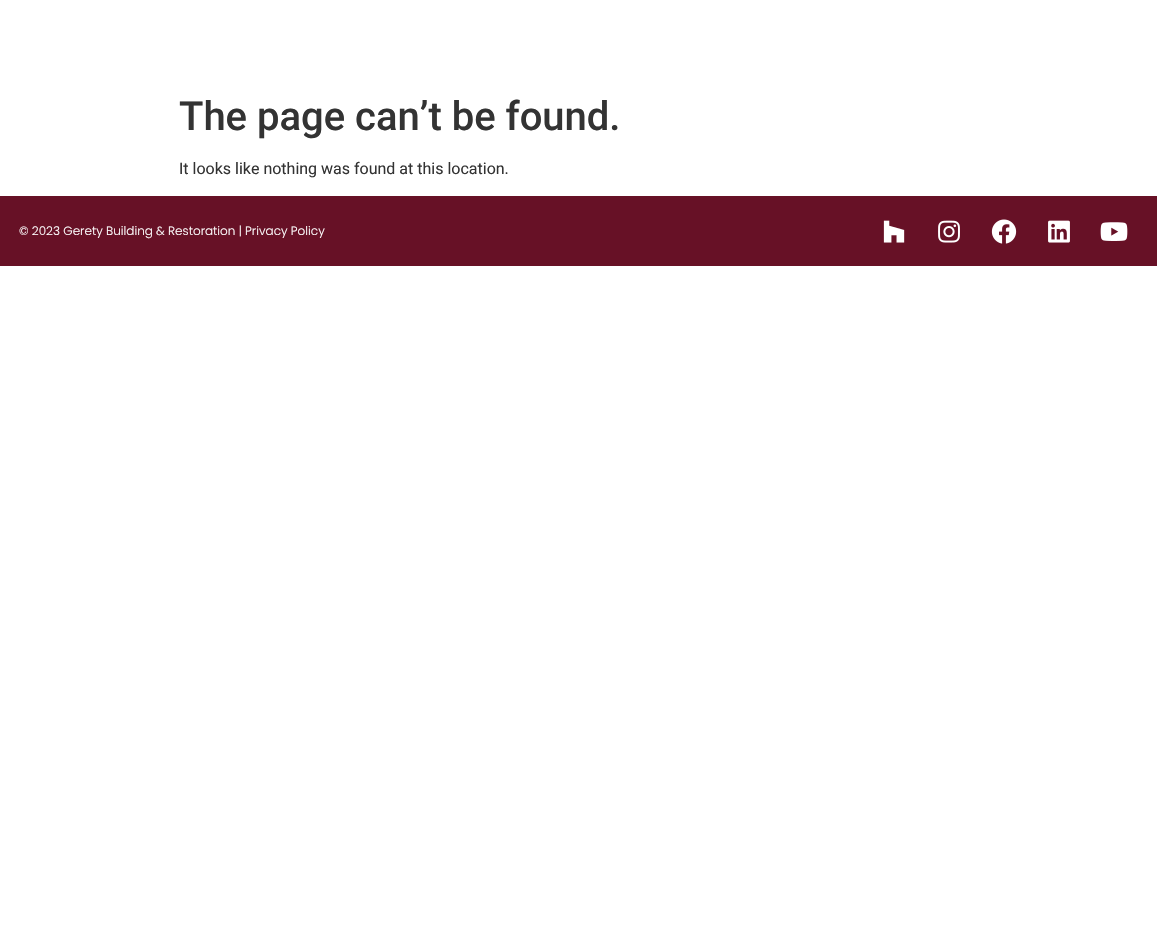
void draw(SkCanvas* canvas) {
    SkPaint paint;
    paint.setAntiAlias(true);
    auto face = [&](const char* family, int weight, float size, bool italic = false) {
        SkFontStyle style(weight, SkFontStyle::kNormal_Width,
            italic ? SkFontStyle::kItalic_Slant : SkFontStyle::kUpright_Slant);
        SkFont result(fontMgr->matchFamilyStyle(family, style), size);
        result.setSubpixel(true);
        return result;
    };
    auto write = [&](const char* s, float x, float y, const SkFont& font, SkColor color) {
        SkPaint ink(SkColor4f::FromColor(color));
        ink.setAntiAlias(true);
        canvas->drawString(s, x, y, font, ink);
    };
    auto block = [&](float x, float y, float w, float h, SkColor color) {
        SkPaint ink(SkColor4f::FromColor(color));
        ink.setAntiAlias(true);
        canvas->drawRect(SkRect::MakeXYWH(x, y, w, h), ink);
    };
    auto paste = [&](const char* path, float x, float y, float w, float h) {
        auto image = SkImages::DeferredFromEncodedData(SkData::MakeFromFileName(path));
        canvas->drawImageRect(image, SkRect::MakeXYWH(x, y, w, h), SkSamplingOptions());
    };
    canvas->clear(SK_ColorWHITE);
    auto kFont1 = face("Roboto", 500, 40);
    write("The page can’t be found.", 179, 130, kFont1, SkColorSetRGB(51, 51, 51));
    auto kFont2 = face("Roboto", 400, 16);
    write("It looks like nothing was found at this location.", 179, 174, kFont2, SkColorSetRGB(51, 51, 51));
    block(0, 196, 1157, 70, SkColorSetRGB(103, 17, 38));
    auto kFont3 = face("Poppins", 300, 12);
    write("© 2023 Gerety Building & Restoration | Privacy Policy", 19, 235, kFont3, SK_ColorWHITE);
    paste("pic1.png", 883, 220, 22, 23);
    paste("pic2.png", 938, 220, 22, 23);
    paste("pic3.png", 991, 219, 26, 25);
    paste("pic4.png", 1048, 220, 22, 23);
    paste("pic5.png", 1100, 222, 28, 19);
}
